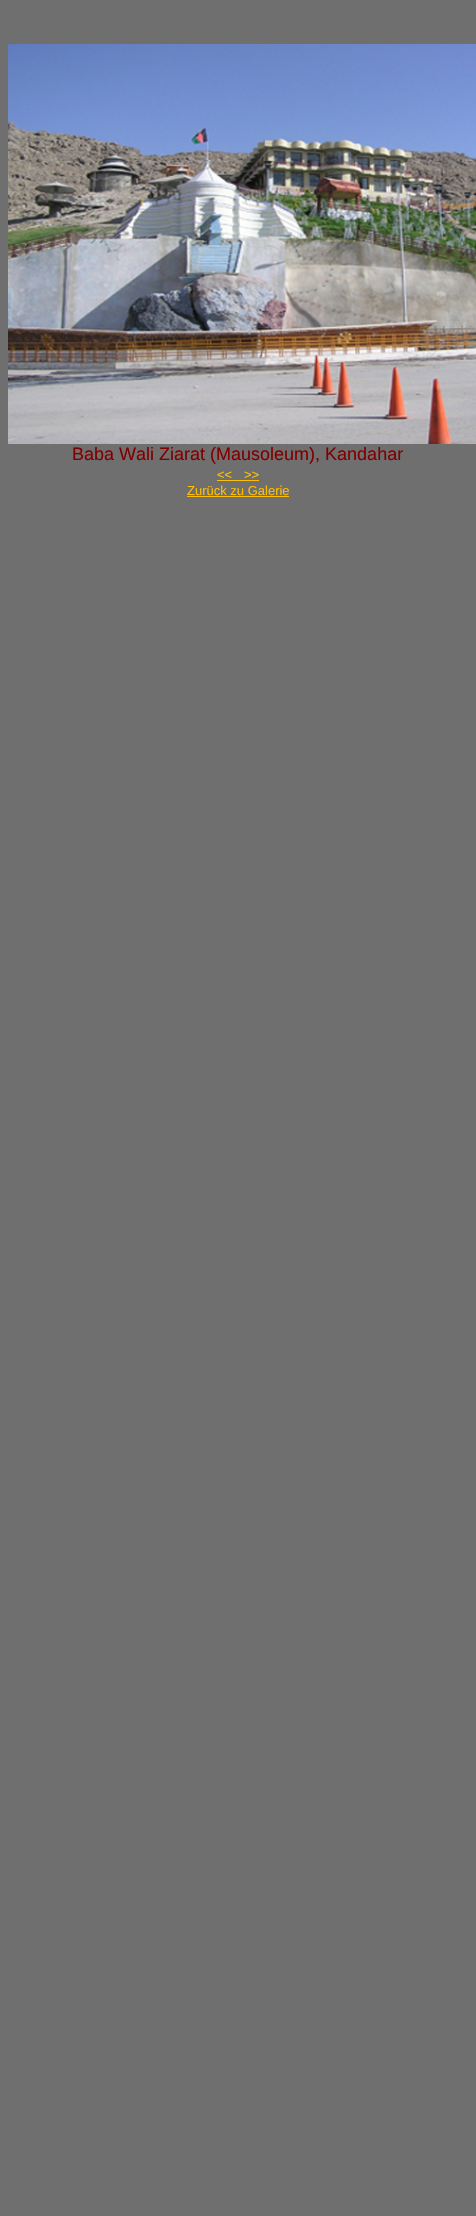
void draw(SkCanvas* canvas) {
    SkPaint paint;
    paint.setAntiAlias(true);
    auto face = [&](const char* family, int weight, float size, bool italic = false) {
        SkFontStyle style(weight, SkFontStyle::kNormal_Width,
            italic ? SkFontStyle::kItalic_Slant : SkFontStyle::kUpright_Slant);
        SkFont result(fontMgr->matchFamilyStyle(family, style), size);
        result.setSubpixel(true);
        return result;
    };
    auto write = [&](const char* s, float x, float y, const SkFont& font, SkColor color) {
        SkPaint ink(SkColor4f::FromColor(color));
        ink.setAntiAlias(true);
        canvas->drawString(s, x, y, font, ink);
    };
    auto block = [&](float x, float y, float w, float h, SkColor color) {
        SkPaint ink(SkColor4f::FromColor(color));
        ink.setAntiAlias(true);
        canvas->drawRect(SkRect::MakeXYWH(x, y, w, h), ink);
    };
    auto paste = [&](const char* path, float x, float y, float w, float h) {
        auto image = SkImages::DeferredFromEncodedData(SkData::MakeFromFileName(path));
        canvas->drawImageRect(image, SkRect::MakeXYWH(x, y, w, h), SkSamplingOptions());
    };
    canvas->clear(SkColorSetRGB(111, 111, 111));
    paste("pic1.png", 8, 44, 468, 400);
    auto kFont1 = face("Liberation Sans", 400, 18);
    write("Baba Wali Ziarat (Mausoleum), Kandahar", 72, 460, kFont1, SkColorSetRGB(128, 0, 0));
    auto kFont2 = face("Liberation Sans", 400, 13);
    write("<<", 217, 479, kFont2, SkColorSetRGB(255, 191, 0));
    block(217, 480, 42, 1, SkColorSetRGB(255, 191, 0));
    write(">>", 244, 479, kFont2, SkColorSetRGB(255, 191, 0));
    write("Zurück zu Galerie", 187, 495, kFont2, SkColorSetRGB(255, 191, 0));
    block(187, 496, 102, 1, SkColorSetRGB(255, 191, 0));
}
